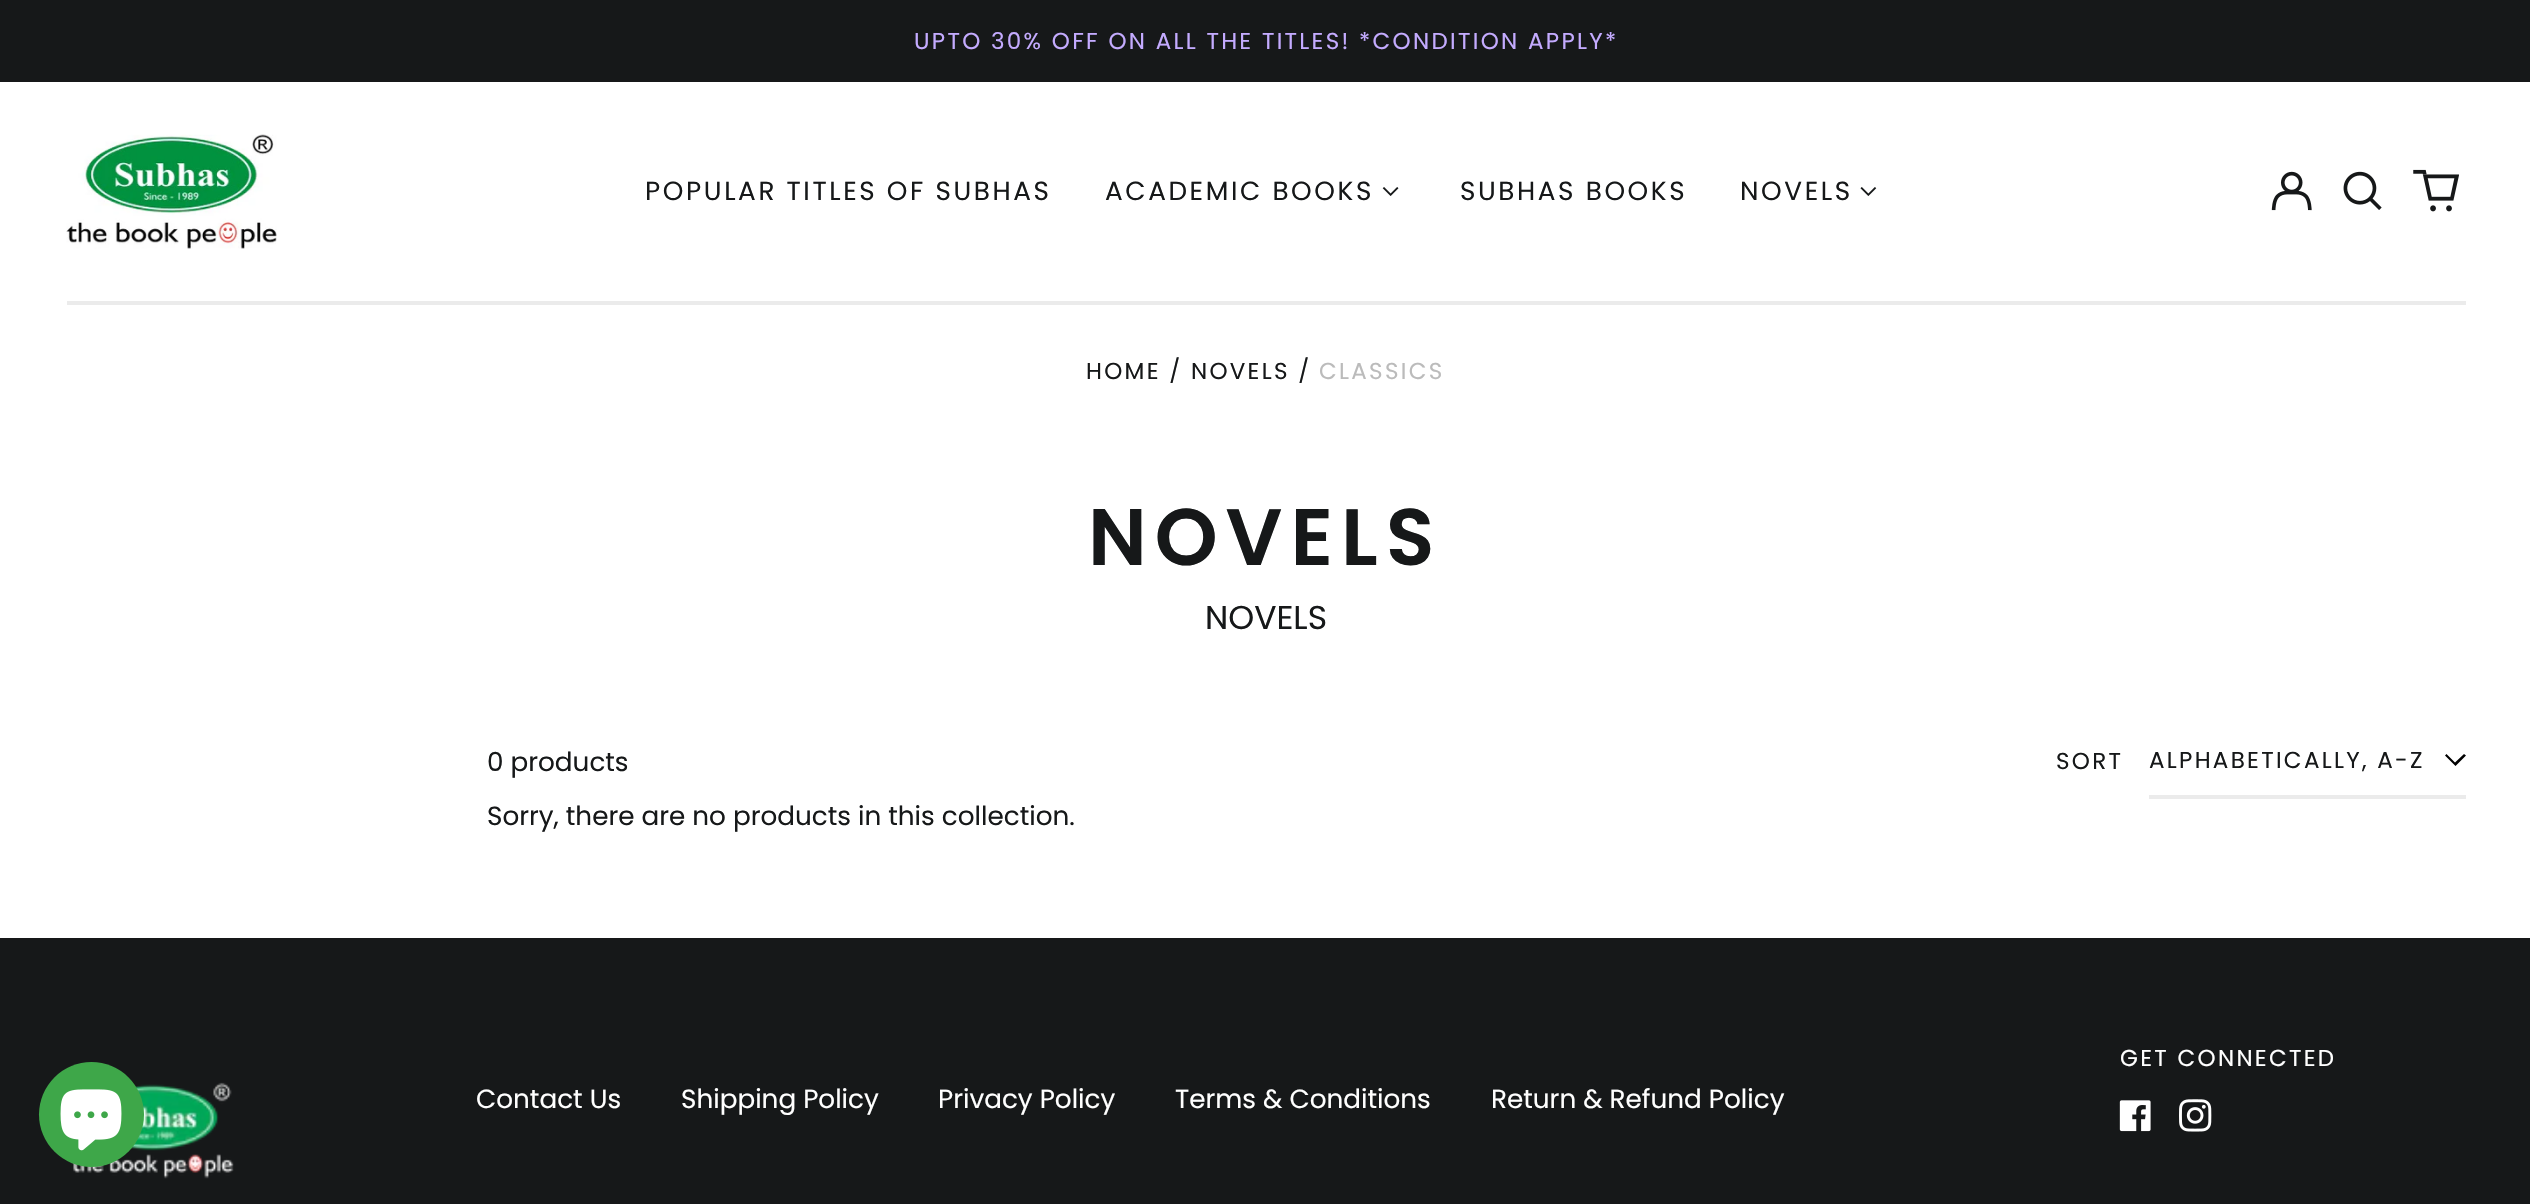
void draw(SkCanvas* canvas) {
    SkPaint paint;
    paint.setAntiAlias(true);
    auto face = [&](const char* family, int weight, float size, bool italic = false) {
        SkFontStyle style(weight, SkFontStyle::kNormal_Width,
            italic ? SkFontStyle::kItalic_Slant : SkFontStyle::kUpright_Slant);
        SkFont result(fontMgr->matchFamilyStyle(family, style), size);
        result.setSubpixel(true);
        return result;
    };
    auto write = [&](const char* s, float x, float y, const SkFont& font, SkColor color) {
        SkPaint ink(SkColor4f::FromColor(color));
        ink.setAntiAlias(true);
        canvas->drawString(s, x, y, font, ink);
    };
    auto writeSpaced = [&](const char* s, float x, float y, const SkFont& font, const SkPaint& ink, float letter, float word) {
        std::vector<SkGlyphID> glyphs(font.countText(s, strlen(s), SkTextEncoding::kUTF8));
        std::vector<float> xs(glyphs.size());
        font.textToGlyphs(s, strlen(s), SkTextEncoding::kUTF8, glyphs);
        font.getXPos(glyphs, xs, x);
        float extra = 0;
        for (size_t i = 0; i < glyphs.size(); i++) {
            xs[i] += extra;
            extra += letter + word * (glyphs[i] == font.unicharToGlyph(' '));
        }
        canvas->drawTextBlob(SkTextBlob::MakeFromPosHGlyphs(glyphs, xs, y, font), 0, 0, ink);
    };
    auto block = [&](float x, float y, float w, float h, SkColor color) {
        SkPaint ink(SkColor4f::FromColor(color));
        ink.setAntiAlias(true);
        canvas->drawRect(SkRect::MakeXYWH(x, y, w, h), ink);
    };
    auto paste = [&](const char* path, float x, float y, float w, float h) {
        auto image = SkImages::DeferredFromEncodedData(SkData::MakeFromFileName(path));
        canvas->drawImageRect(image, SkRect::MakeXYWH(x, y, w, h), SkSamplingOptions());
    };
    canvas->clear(SK_ColorWHITE);
    block(0, 0, 2530, 82, SkColorSetRGB(22, 24, 25));
    auto kFont1 = face("Poppins", 400, 23);
    paint.setColor(SkColorSetRGB(196, 171, 255));
    writeSpaced("UPTO 30% OFF ON ALL THE TITLES! *CONDITION APPLY*", 914, 49, kFont1, paint, 2.3f, 0);
    block(67, 301, 2399, 4, SkColorSetRGB(235, 235, 235));
    paste("pic1.png", 66, 134, 211, 115);
    auto kFont2 = face("Poppins", 400, 26.25f);
    paint.setColor(SkColorSetRGB(22, 24, 25));
    writeSpaced("POPULAR TITLES OF SUBHAS", 645, 200, kFont2, paint, 2.6f, 0);
    writeSpaced("ACADEMIC BOOKS", 1105, 200, kFont2, paint, 2.6f, 0);
    paste("pic2.png", 1382, 187, 17, 9);
    writeSpaced("SUBHAS BOOKS", 1460, 200, kFont2, paint, 2.6f, 0);
    writeSpaced("NOVELS", 1740, 200, kFont2, paint, 2.6f, 0);
    paste("pic3.png", 1860, 187, 17, 9);
    paste("pic4.png", 2271, 171, 41, 40);
    paste("pic5.png", 2343, 171, 39, 39);
    paste("pic6.png", 2413, 169, 46, 43);
    writeSpaced("HOME / NOVELS /", 1086, 379, kFont1, paint, 2.3f, 0);
    paint.setColor(SkColorSetRGB(187, 187, 187));
    writeSpaced("CLASSICS", 1319, 379, kFont1, paint, 2.3f, 0);
    auto kFont3 = face("Poppins", 600, 80);
    paint.setColor(SkColorSetRGB(22, 24, 25));
    writeSpaced("NOVELS", 1088, 565, kFont3, paint, 8, 0);
    auto kFont4 = face("Poppins", 400, 33);
    write("NOVELS", 1205, 629, kFont4, SkColorSetRGB(22, 24, 25));
    write("0 products", 487, 771, kFont2, SkColorSetRGB(22, 24, 25));
    writeSpaced("SORT", 2056, 769, kFont1, paint, 2.3f, 0);
    paint.setColor(SK_ColorBLACK);
    canvas->drawPath(SkPathBuilder(SkPathFillType::kEvenOdd).moveTo(2464, 754).lineTo(2466, 755.5f).lineTo(2455.5f, 766).lineTo(2445, 755.5f).lineTo(2446.5f, 754).lineTo(2455, 762.5f).close().detach(), paint);
    block(2149, 795, 317, 4, SkColorSetRGB(235, 235, 235));
    paint.setColor(SkColorSetRGB(22, 24, 25));
    writeSpaced("ALPHABETICALLY, A-Z", 2149, 768, kFont1, paint, 2.3f, 0);
    write("Sorry, there are no products in this collection.", 487, 825, kFont2, SkColorSetRGB(22, 24, 25));
    block(0, 938, 2530, 266, SkColorSetRGB(22, 24, 25));
    paste("pic10.png", 71, 1082, 163, 97);
    paint.setColor(SkColorSetRGB(62, 167, 73));
    canvas->drawCircle(91.5f, 1114.5f, 52.5f, paint);
    paste("pic7.png", 60, 1089, 62, 62);
    paint.setColor(SK_ColorWHITE);
    writeSpaced("GET CONNECTED", 2120, 1066, kFont1, paint, 2.3f, 0);
    paste("pic8.png", 2119, 1100, 32, 32);
    paste("pic9.png", 2179, 1099, 33, 33);
    write("Contact Us", 476, 1108, kFont2, SK_ColorWHITE);
    write("Shipping Policy", 681, 1108, kFont2, SK_ColorWHITE);
    write("Privacy Policy", 938, 1108, kFont2, SK_ColorWHITE);
    write("Terms & Conditions", 1175, 1108, kFont2, SK_ColorWHITE);
    write("Return & Refund Policy", 1491, 1108, kFont2, SK_ColorWHITE);
}
